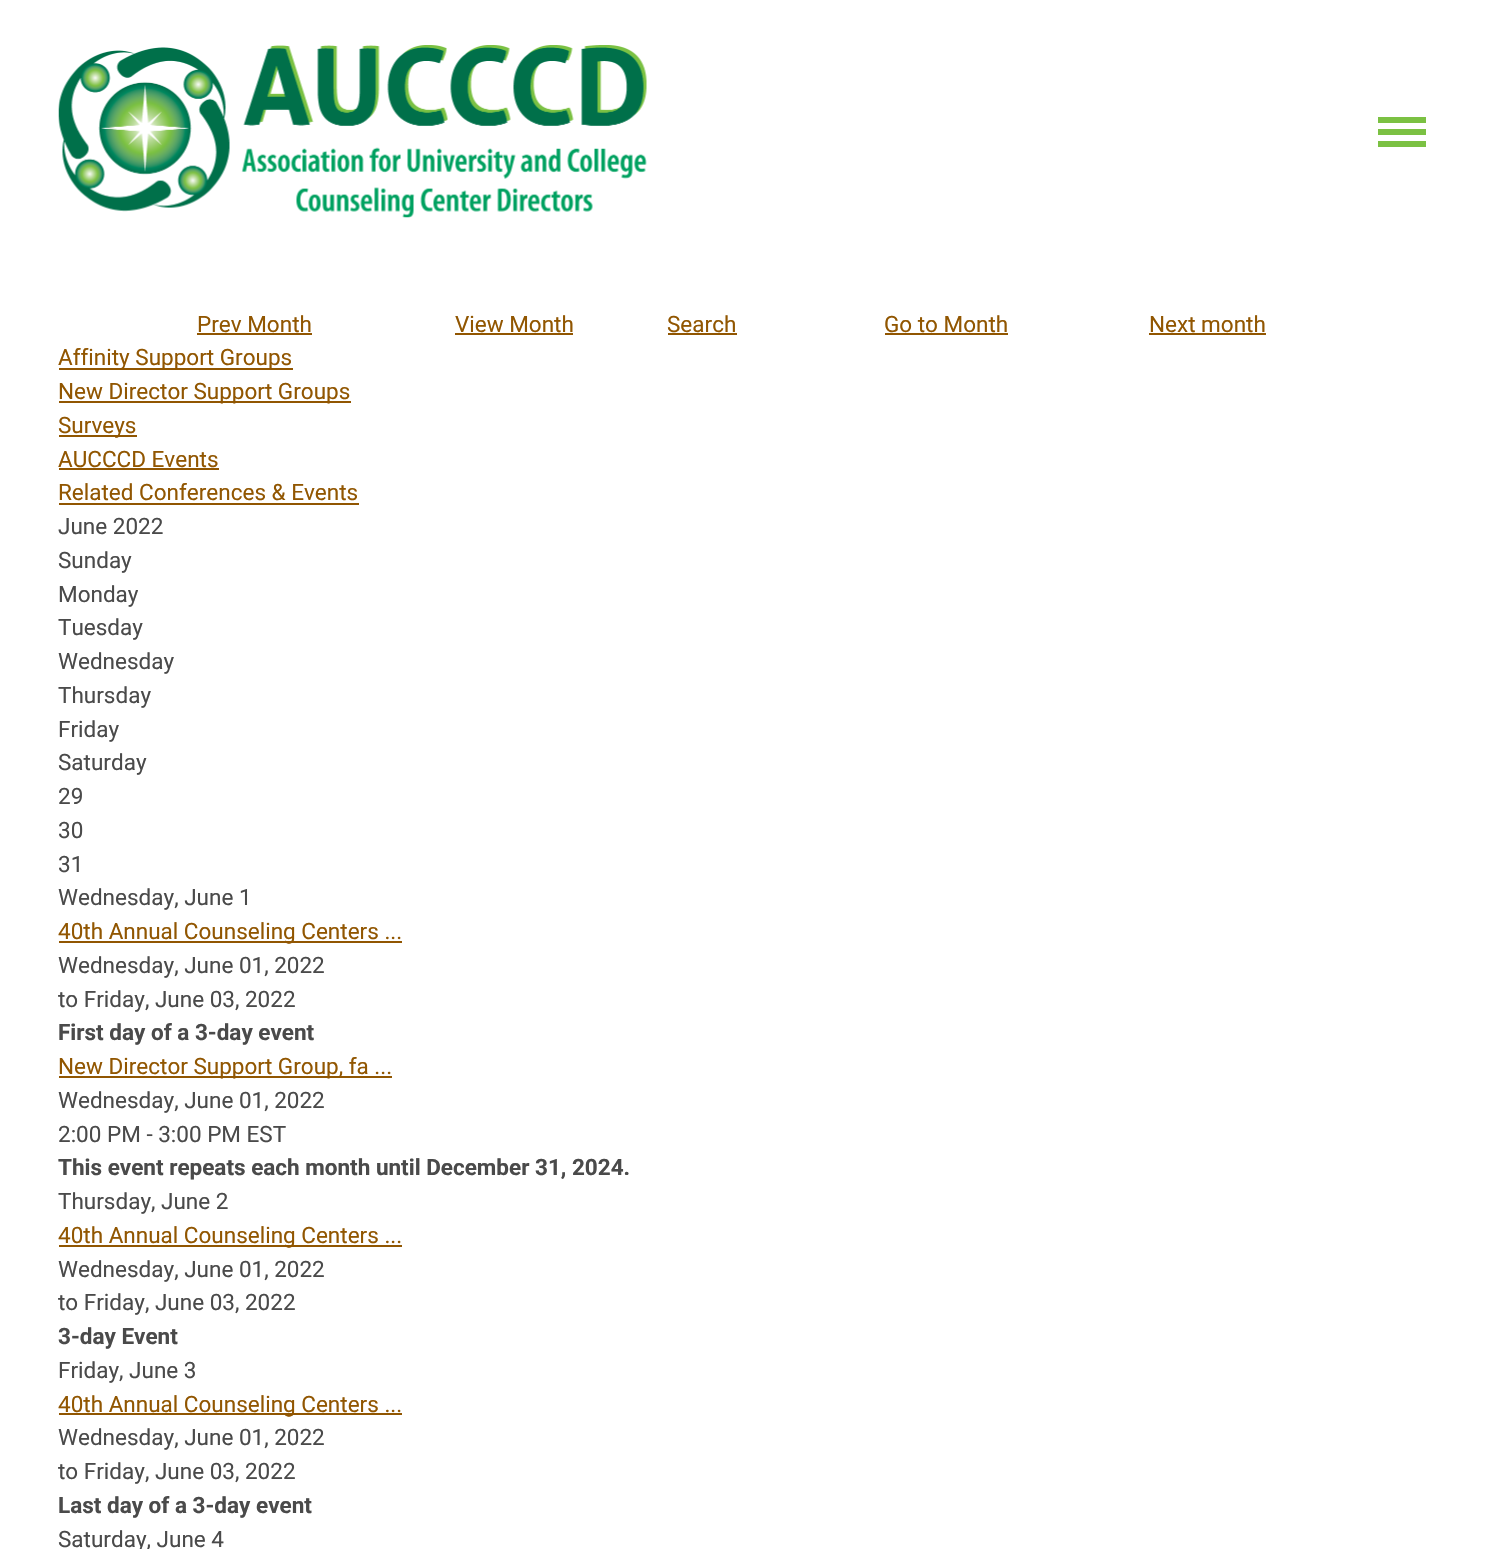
void draw(SkCanvas* canvas) {
    SkPaint paint;
    paint.setAntiAlias(true);
    auto face = [&](const char* family, int weight, float size, bool italic = false) {
        SkFontStyle style(weight, SkFontStyle::kNormal_Width,
            italic ? SkFontStyle::kItalic_Slant : SkFontStyle::kUpright_Slant);
        SkFont result(fontMgr->matchFamilyStyle(family, style), size);
        result.setSubpixel(true);
        return result;
    };
    auto write = [&](const char* s, float x, float y, const SkFont& font, SkColor color) {
        SkPaint ink(SkColor4f::FromColor(color));
        ink.setAntiAlias(true);
        canvas->drawString(s, x, y, font, ink);
    };
    auto block = [&](float x, float y, float w, float h, SkColor color) {
        SkPaint ink(SkColor4f::FromColor(color));
        ink.setAntiAlias(true);
        canvas->drawRect(SkRect::MakeXYWH(x, y, w, h), ink);
    };
    auto paste = [&](const char* path, float x, float y, float w, float h) {
        auto image = SkImages::DeferredFromEncodedData(SkData::MakeFromFileName(path));
        canvas->drawImageRect(image, SkRect::MakeXYWH(x, y, w, h), SkSamplingOptions());
    };
    canvas->clear(SK_ColorWHITE);
    paste("pic1.png", 58, 45, 589, 173);
    paint.setColor(SkColorSetRGB(123, 193, 67));
    canvas->drawPath(SkPathBuilder().moveTo(1378, 117).lineTo(1426, 117).lineTo(1426, 123).lineTo(1378, 123).close().moveTo(1378, 129).lineTo(1426, 129).lineTo(1426, 135).lineTo(1378, 135).close().moveTo(1378, 141).lineTo(1426, 141).lineTo(1426, 147).lineTo(1378, 147).close().detach(), paint);
    auto kFont1 = face("Roboto", 400, 22.5f);
    write("Prev Month", 197, 332, kFont1, SkColorSetRGB(145, 86, 1));
    block(197, 333, 115, 2, SkColorSetRGB(145, 86, 1));
    write("View Month", 455, 332, kFont1, SkColorSetRGB(145, 86, 1));
    block(455, 333, 118, 2, SkColorSetRGB(145, 86, 1));
    write("Search", 667, 332, kFont1, SkColorSetRGB(145, 86, 1));
    block(668, 333, 69, 2, SkColorSetRGB(145, 86, 1));
    write("Go to Month", 884, 332, kFont1, SkColorSetRGB(145, 86, 1));
    block(885, 333, 123, 2, SkColorSetRGB(145, 86, 1));
    write("Next month", 1149, 332, kFont1, SkColorSetRGB(145, 86, 1));
    block(1149, 333, 117, 2, SkColorSetRGB(145, 86, 1));
    block(59, 368, 234, 2, SkColorSetRGB(145, 86, 1));
    write("Affinity Support Groups", 58, 365, kFont1, SkColorSetRGB(145, 86, 1));
    block(59, 401, 292, 2, SkColorSetRGB(145, 86, 1));
    write("New Director Support Groups", 58, 399, kFont1, SkColorSetRGB(145, 86, 1));
    block(59, 435, 78, 2, SkColorSetRGB(145, 86, 1));
    write("Surveys", 58, 433, kFont1, SkColorSetRGB(145, 86, 1));
    write("AUCCCD Events", 58, 467, kFont1, SkColorSetRGB(145, 86, 1));
    block(59, 468, 160, 2, SkColorSetRGB(145, 86, 1));
    write("Related Conferences & Events", 58, 500, kFont1, SkColorSetRGB(145, 86, 1));
    block(59, 503, 300, 2, SkColorSetRGB(145, 86, 1));
    write("June 2022", 58, 534, kFont1, SkColorSetRGB(74, 74, 74));
    write("Sunday", 58, 568, kFont1, SkColorSetRGB(74, 74, 74));
    write("Monday", 58, 602, kFont1, SkColorSetRGB(74, 74, 74));
    write("Tuesday", 58, 635, kFont1, SkColorSetRGB(74, 74, 74));
    write("Wednesday", 58, 669, kFont1, SkColorSetRGB(74, 74, 74));
    write("Thursday", 58, 703, kFont1, SkColorSetRGB(74, 74, 74));
    write("Friday", 58, 737, kFont1, SkColorSetRGB(74, 74, 74));
    write("Saturday", 58, 770, kFont1, SkColorSetRGB(74, 74, 74));
    write("29", 58, 804, kFont1, SkColorSetRGB(74, 74, 74));
    write("30", 58, 838, kFont1, SkColorSetRGB(74, 74, 74));
    write("31", 58, 872, kFont1, SkColorSetRGB(74, 74, 74));
    write("Wednesday, June 1", 58, 905, kFont1, SkColorSetRGB(74, 74, 74));
    block(59, 941, 343, 2, SkColorSetRGB(145, 86, 1));
    write("40th Annual Counseling Centers ...", 58, 939, kFont1, SkColorSetRGB(145, 86, 1));
    write("Wednesday, June 01, 2022", 58, 973, kFont1, SkColorSetRGB(74, 74, 74));
    write("to Friday, June 03, 2022", 58, 1007, kFont1, SkColorSetRGB(74, 74, 74));
    auto kFont2 = face("Roboto", 700, 22.5f);
    write("First day of a 3-day event", 58, 1040, kFont2, SkColorSetRGB(74, 74, 74));
    block(59, 1076, 333, 2, SkColorSetRGB(145, 86, 1));
    write("New Director Support Group, fa ...", 58, 1074, kFont1, SkColorSetRGB(145, 86, 1));
    write("Wednesday, June 01, 2022", 58, 1108, kFont1, SkColorSetRGB(74, 74, 74));
    write("2:00 PM - 3:00 PM EST", 58, 1142, kFont1, SkColorSetRGB(74, 74, 74));
    write("This event repeats each month until December 31, 2024.", 58, 1175, kFont2, SkColorSetRGB(74, 74, 74));
    write("Thursday, June 2", 58, 1209, kFont1, SkColorSetRGB(74, 74, 74));
    block(59, 1245, 343, 2, SkColorSetRGB(145, 86, 1));
    write("40th Annual Counseling Centers ...", 58, 1243, kFont1, SkColorSetRGB(145, 86, 1));
    write("Wednesday, June 01, 2022", 58, 1277, kFont1, SkColorSetRGB(74, 74, 74));
    write("to Friday, June 03, 2022", 58, 1310, kFont1, SkColorSetRGB(74, 74, 74));
    write("3-day Event", 58, 1344, kFont2, SkColorSetRGB(74, 74, 74));
    write("Friday, June 3", 58, 1378, kFont1, SkColorSetRGB(74, 74, 74));
    block(59, 1413, 343, 2, SkColorSetRGB(145, 86, 1));
    write("40th Annual Counseling Centers ...", 58, 1412, kFont1, SkColorSetRGB(145, 86, 1));
    write("Wednesday, June 01, 2022", 58, 1445, kFont1, SkColorSetRGB(74, 74, 74));
    write("to Friday, June 03, 2022", 58, 1479, kFont1, SkColorSetRGB(74, 74, 74));
    write("Last day of a 3-day event", 58, 1513, kFont2, SkColorSetRGB(74, 74, 74));
    write("Saturday, June 4", 58, 1547, kFont1, SkColorSetRGB(74, 74, 74));
}
